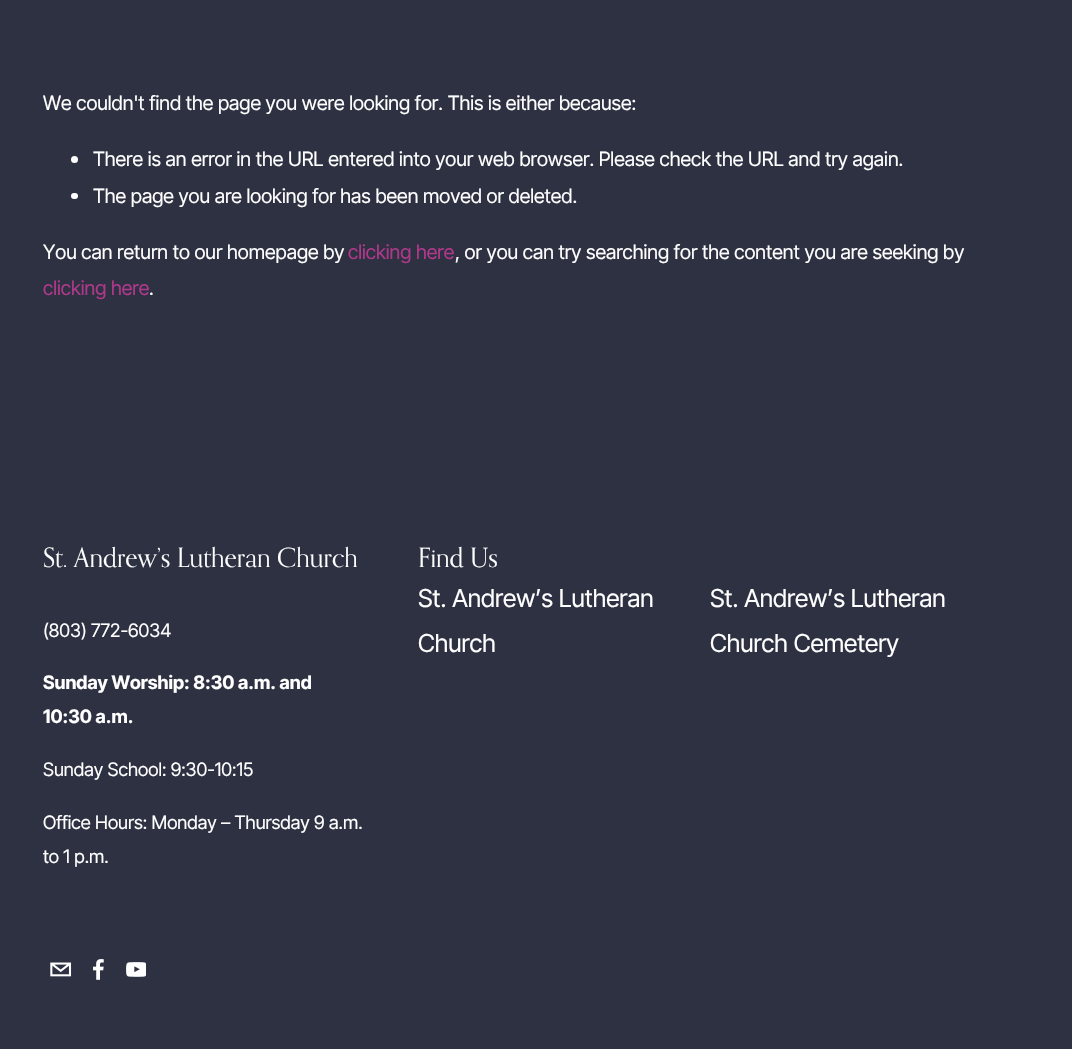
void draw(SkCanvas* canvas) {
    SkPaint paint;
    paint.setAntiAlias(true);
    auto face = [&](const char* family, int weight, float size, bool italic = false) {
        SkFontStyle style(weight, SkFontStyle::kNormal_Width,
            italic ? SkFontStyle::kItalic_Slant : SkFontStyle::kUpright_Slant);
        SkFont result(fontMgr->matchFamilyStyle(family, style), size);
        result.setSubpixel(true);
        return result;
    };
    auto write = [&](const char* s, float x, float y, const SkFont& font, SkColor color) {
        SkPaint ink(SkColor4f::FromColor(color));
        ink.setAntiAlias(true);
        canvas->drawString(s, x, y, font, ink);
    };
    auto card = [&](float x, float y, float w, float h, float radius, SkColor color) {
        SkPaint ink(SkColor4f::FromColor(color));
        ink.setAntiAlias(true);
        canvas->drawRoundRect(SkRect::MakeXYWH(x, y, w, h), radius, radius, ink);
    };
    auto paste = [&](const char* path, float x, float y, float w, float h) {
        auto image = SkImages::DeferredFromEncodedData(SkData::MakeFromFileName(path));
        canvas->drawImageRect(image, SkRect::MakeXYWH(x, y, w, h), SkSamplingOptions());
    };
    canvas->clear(SkColorSetRGB(45, 49, 66));
    auto kFont1 = face("Inter Tight", 400, 19.8f);
    write("We couldn't find the page you were looking for. This is either because:", 43, 110, kFont1, SK_ColorWHITE);
    paint.setColor(SK_ColorWHITE);
    canvas->drawCircle(74.5f, 159.5f, 3.5f, paint);
    write("There is an error in the URL entered into your web browser. Please check the URL and try again.", 93, 166, kFont1, SK_ColorWHITE);
    card(71, 193, 7, 6, 3, SK_ColorWHITE);
    write("The page you are looking for has been moved or deleted.", 93, 203, kFont1, SK_ColorWHITE);
    write("You can return to our homepage by", 43, 259, kFont1, SK_ColorWHITE);
    write("clicking here", 348, 259, kFont1, SkColorSetRGB(176, 56, 138));
    write(", or you can try searching for the content you are seeking by", 455, 259, kFont1, SK_ColorWHITE);
    write("clicking here", 43, 295, kFont1, SkColorSetRGB(176, 56, 138));
    write(".", 149, 295, kFont1, SK_ColorWHITE);
    auto kFont2 = face("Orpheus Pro", 400, 26.5f);
    write("St. Andrew’s Lutheran Church", 43, 567, kFont2, SK_ColorWHITE);
    auto kFont3 = face("Inter Tight", 400, 18.5f);
    write("(803) 772-6034", 43, 637, kFont3, SK_ColorWHITE);
    auto kFont4 = face("Inter Tight", 700, 18.5f);
    write("Sunday Worship: 8:30 a.m. and", 43, 689, kFont4, SK_ColorWHITE);
    write("10:30 a.m.", 43, 723, kFont4, SK_ColorWHITE);
    write("Sunday School: 9:30-10:15", 43, 776, kFont3, SK_ColorWHITE);
    write("Office Hours: Monday – Thursday 9 a.m.", 43, 829, kFont3, SK_ColorWHITE);
    write("to 1 p.m.", 43, 863, kFont3, SK_ColorWHITE);
    write("Find Us", 418, 567, kFont2, SK_ColorWHITE);
    auto kFont5 = face("Inter Tight", 400, 24.75f);
    write("St. Andrew’s Lutheran", 418, 607, kFont5, SK_ColorWHITE);
    write("Church", 418, 652, kFont5, SK_ColorWHITE);
    write("St. Andrew’s Lutheran", 710, 607, kFont5, SK_ColorWHITE);
    write("Church Cemetery", 710, 652, kFont5, SK_ColorWHITE);
    paste("pic1.png", 50, 962, 22, 15);
    paste("pic2.png", 93, 959, 11, 21);
    paste("pic3.png", 126, 962, 20, 15);
}
